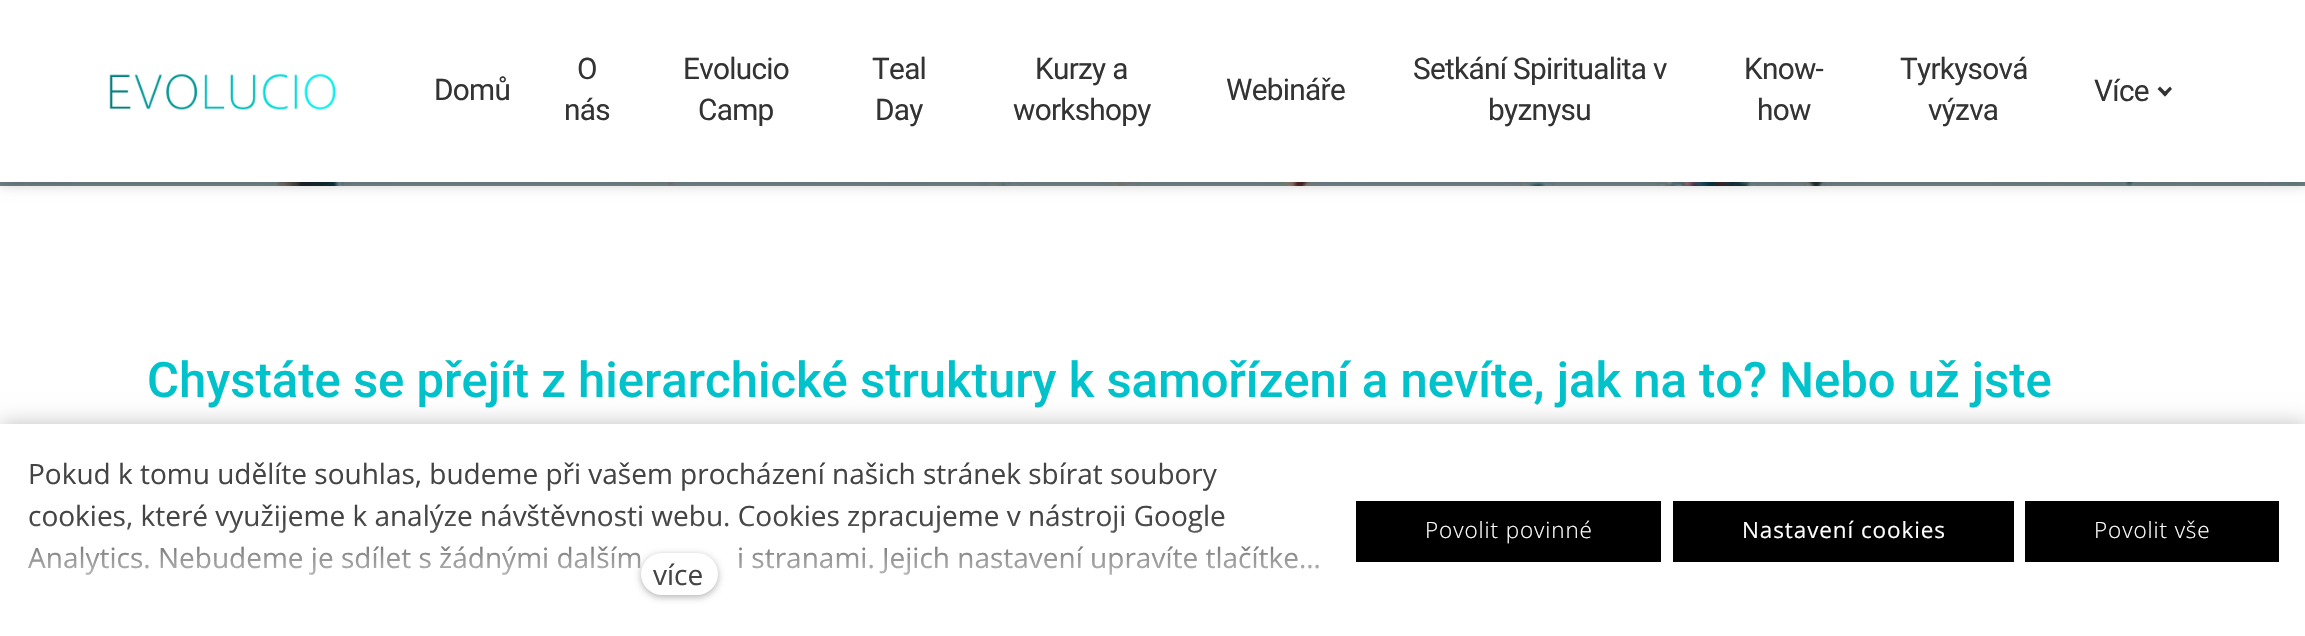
void draw(SkCanvas* canvas) {
    SkPaint paint;
    paint.setAntiAlias(true);
    auto face = [&](const char* family, int weight, float size, bool italic = false) {
        SkFontStyle style(weight, SkFontStyle::kNormal_Width,
            italic ? SkFontStyle::kItalic_Slant : SkFontStyle::kUpright_Slant);
        SkFont result(fontMgr->matchFamilyStyle(family, style), size);
        result.setSubpixel(true);
        return result;
    };
    auto write = [&](const char* s, float x, float y, const SkFont& font, SkColor color) {
        SkPaint ink(SkColor4f::FromColor(color));
        ink.setAntiAlias(true);
        canvas->drawString(s, x, y, font, ink);
    };
    auto writeSpaced = [&](const char* s, float x, float y, const SkFont& font, const SkPaint& ink, float letter, float word) {
        std::vector<SkGlyphID> glyphs(font.countText(s, strlen(s), SkTextEncoding::kUTF8));
        std::vector<float> xs(glyphs.size());
        font.textToGlyphs(s, strlen(s), SkTextEncoding::kUTF8, glyphs);
        font.getXPos(glyphs, xs, x);
        float extra = 0;
        for (size_t i = 0; i < glyphs.size(); i++) {
            xs[i] += extra;
            extra += letter + word * (glyphs[i] == font.unicharToGlyph(' '));
        }
        canvas->drawTextBlob(SkTextBlob::MakeFromPosHGlyphs(glyphs, xs, y, font), 0, 0, ink);
    };
    auto block = [&](float x, float y, float w, float h, SkColor color) {
        SkPaint ink(SkColor4f::FromColor(color));
        ink.setAntiAlias(true);
        canvas->drawRect(SkRect::MakeXYWH(x, y, w, h), ink);
    };
    auto card = [&](float x, float y, float w, float h, float radius, SkColor color) {
        SkPaint ink(SkColor4f::FromColor(color));
        ink.setAntiAlias(true);
        canvas->drawRoundRect(SkRect::MakeXYWH(x, y, w, h), radius, radius, ink);
    };
    auto paste = [&](const char* path, float x, float y, float w, float h) {
        auto image = SkImages::DeferredFromEncodedData(SkData::MakeFromFileName(path));
        canvas->drawImageRect(image, SkRect::MakeXYWH(x, y, w, h), SkSamplingOptions());
    };
    canvas->clear(SK_ColorWHITE);
    paste("pic2.png", 0, 182, 2305, 4);
    paint.setColor(SkColorSetARGB(77, 0, 0, 0));
    paint.setMaskFilter(SkMaskFilter::MakeBlur(kNormal_SkBlurStyle, 7));
    canvas->drawRect(SkRect::MakeXYWH(0, 0, 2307, 182), paint);
    paint.setMaskFilter(nullptr);
    block(0, 0, 2305, 182, SK_ColorWHITE);
    paste("pic1.png", 109, 73, 229, 37);
    auto kFont1 = face("Roboto", 400, 29.75f);
    paint.setColor(SkColorSetRGB(51, 51, 51));
    writeSpaced("Domů", 434, 100, kFont1, paint, -0.7f, 0);
    writeSpaced("O", 577, 79, kFont1, paint, -0.7f, 0);
    writeSpaced("nás", 564, 120, kFont1, paint, -0.7f, 0);
    writeSpaced("Evolucio", 683, 79, kFont1, paint, -0.7f, 0);
    writeSpaced("Camp", 698, 120, kFont1, paint, -0.7f, 0);
    writeSpaced("Teal", 872, 79, kFont1, paint, -0.7f, 0);
    writeSpaced("Day", 875, 120, kFont1, paint, -0.7f, 0);
    writeSpaced("Kurzy a", 1035, 79, kFont1, paint, -0.7f, 0);
    writeSpaced("workshopy", 1013, 120, kFont1, paint, -0.7f, 0);
    writeSpaced("Webináře", 1226, 100, kFont1, paint, -0.7f, 0);
    writeSpaced("Setkání Spiritualita v", 1413, 79, kFont1, paint, -0.7f, 0);
    writeSpaced("byznysu", 1488, 120, kFont1, paint, -0.7f, 0);
    writeSpaced("Know-", 1744, 79, kFont1, paint, -0.7f, 0);
    writeSpaced("how", 1757, 120, kFont1, paint, -0.7f, 0);
    writeSpaced("Tyrkysová", 1900, 79, kFont1, paint, -0.7f, 0);
    writeSpaced("výzva", 1928, 120, kFont1, paint, -0.7f, 0);
    writeSpaced("Více", 2094, 101, kFont1, paint, -0.7f, 0);
    canvas->drawPath(SkPathBuilder().moveTo(2170, 86.5f).lineTo(2172, 89).lineTo(2165, 96.5f).lineTo(2162.5f, 94).close().detach(), paint);
    canvas->drawPath(SkPathBuilder().moveTo(2160, 86.5f).lineTo(2167.5f, 94).lineTo(2165, 96.5f).lineTo(2157.5f, 89).close().detach(), paint);
    auto kFont2 = face("Roboto", 500, 49);
    write("Chystáte se přejít z hierarchické struktury k samořízení a nevíte, jak na to? Nebo už jste", 147, 397, kFont2, SkColorSetRGB(0, 194, 203));
    paint.setColor(SkColorSetARGB(64, 0, 0, 0));
    paint.setMaskFilter(SkMaskFilter::MakeBlur(kNormal_SkBlurStyle, 10.5f));
    canvas->drawRect(SkRect::MakeXYWH(0, 424, 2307, 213), paint);
    paint.setMaskFilter(nullptr);
    block(0, 424, 2305, 212, SK_ColorWHITE);
    auto kFont3 = face("Open Sans", 400, 28);
    write("Pokud k tomu udělíte souhlas, budeme při vašem procházení našich stránek sbírat soubory", 28, 484, kFont3, SkColorSetRGB(68, 68, 68));
    write("cookies, které využijeme k analýze návštěvnosti webu. Cookies zpracujeme v nástroji Google", 28, 526, kFont3, SkColorSetRGB(68, 68, 68));
    write("Analytics. Nebudeme je sdílet s žádnými dalším", 28, 568, kFont3, SkColorSetRGB(68, 68, 68));
    write("i stranami. Jejich nastavení upravíte tlačítke…", 737, 568, kFont3, SkColorSetRGB(68, 68, 68));
    {
        const SkColor colors[] = {SK_ColorWHITE, SkColorSetARGB(0, 255, 255, 255)};
        const float stops[] = {0, 1};
        const SkPoint ends[] = {{678, 609}, {678, 520}};
        paint.setShader(SkGradientShader::MakeLinear(ends, colors, stops, 2, SkTileMode::kClamp));
        paint.setAlpha(255);
    }
    canvas->drawRect(SkRect::MakeXYWH(28, 522, 1291, 53), paint);
    paint.setShader(nullptr);
    paint.setColor(SkColorSetARGB(77, 0, 0, 0));
    paint.setMaskFilter(SkMaskFilter::MakeBlur(kNormal_SkBlurStyle, 3.5f));
    canvas->drawRoundRect(SkRect::MakeXYWH(641, 555, 77, 42), 21, 21, paint);
    paint.setMaskFilter(nullptr);
    card(641, 553, 77, 42, 21, SK_ColorWHITE);
    write("více", 653, 585, kFont3, SkColorSetRGB(68, 68, 68));
    block(1356, 501, 305, 61, SK_ColorBLACK);
    auto kFont4 = face("Open Sans", 300, 22.5f);
    paint.setColor(SK_ColorWHITE);
    writeSpaced("Povolit povinné", 1425, 538, kFont4, paint, 0.9f, 0);
    block(1673, 501, 341, 61, SK_ColorBLACK);
    auto kFont5 = face("Open Sans", 400, 22.5f);
    writeSpaced("Nastavení cookies", 1742, 538, kFont5, paint, 0.9f, 0);
    block(2025, 501, 254, 61, SK_ColorBLACK);
    writeSpaced("Povolit vše", 2094, 538, kFont4, paint, 0.9f, 0);
}
